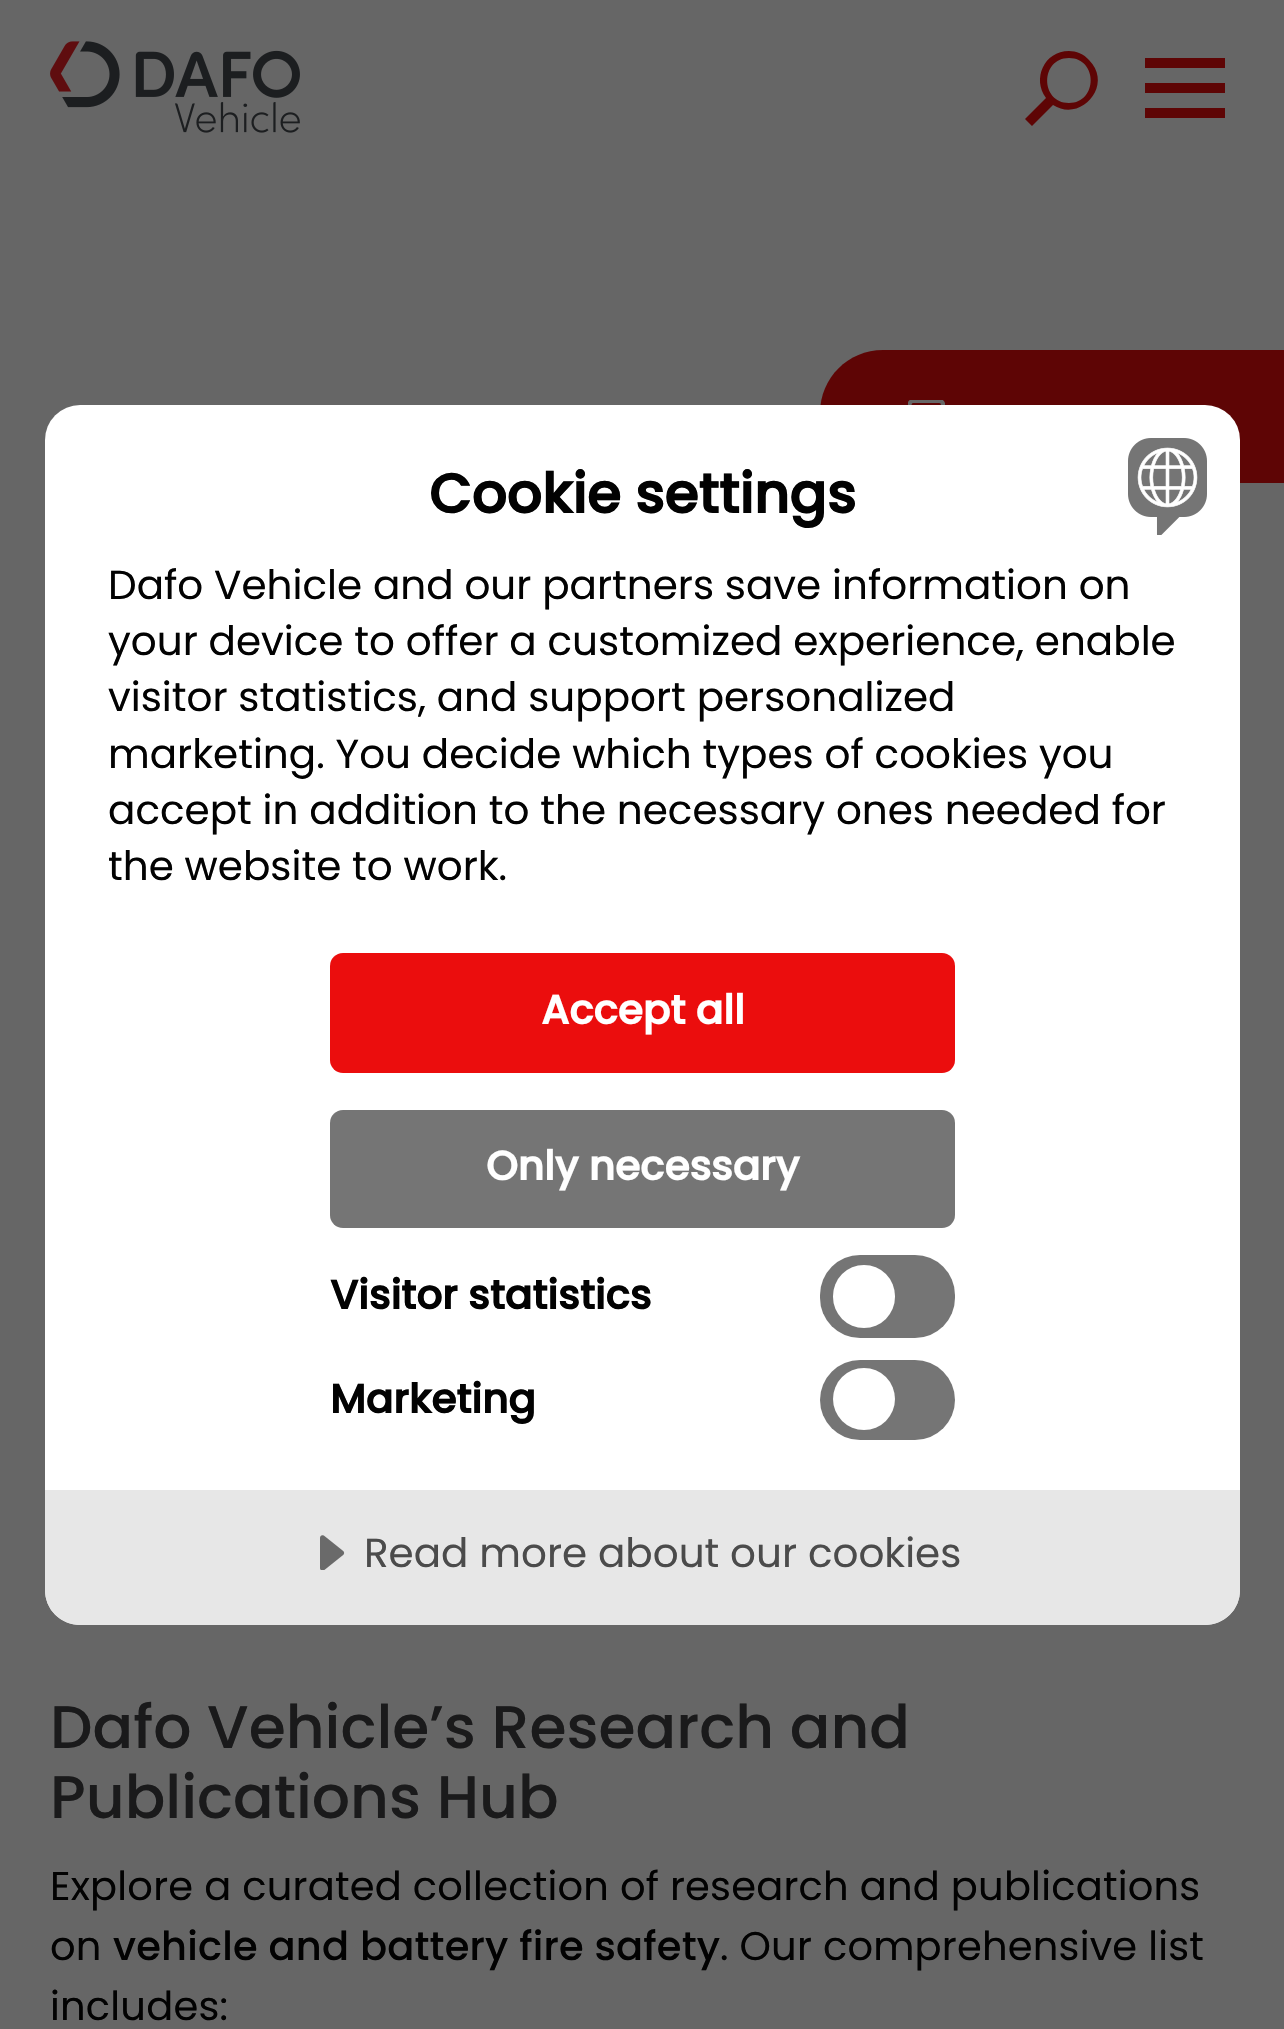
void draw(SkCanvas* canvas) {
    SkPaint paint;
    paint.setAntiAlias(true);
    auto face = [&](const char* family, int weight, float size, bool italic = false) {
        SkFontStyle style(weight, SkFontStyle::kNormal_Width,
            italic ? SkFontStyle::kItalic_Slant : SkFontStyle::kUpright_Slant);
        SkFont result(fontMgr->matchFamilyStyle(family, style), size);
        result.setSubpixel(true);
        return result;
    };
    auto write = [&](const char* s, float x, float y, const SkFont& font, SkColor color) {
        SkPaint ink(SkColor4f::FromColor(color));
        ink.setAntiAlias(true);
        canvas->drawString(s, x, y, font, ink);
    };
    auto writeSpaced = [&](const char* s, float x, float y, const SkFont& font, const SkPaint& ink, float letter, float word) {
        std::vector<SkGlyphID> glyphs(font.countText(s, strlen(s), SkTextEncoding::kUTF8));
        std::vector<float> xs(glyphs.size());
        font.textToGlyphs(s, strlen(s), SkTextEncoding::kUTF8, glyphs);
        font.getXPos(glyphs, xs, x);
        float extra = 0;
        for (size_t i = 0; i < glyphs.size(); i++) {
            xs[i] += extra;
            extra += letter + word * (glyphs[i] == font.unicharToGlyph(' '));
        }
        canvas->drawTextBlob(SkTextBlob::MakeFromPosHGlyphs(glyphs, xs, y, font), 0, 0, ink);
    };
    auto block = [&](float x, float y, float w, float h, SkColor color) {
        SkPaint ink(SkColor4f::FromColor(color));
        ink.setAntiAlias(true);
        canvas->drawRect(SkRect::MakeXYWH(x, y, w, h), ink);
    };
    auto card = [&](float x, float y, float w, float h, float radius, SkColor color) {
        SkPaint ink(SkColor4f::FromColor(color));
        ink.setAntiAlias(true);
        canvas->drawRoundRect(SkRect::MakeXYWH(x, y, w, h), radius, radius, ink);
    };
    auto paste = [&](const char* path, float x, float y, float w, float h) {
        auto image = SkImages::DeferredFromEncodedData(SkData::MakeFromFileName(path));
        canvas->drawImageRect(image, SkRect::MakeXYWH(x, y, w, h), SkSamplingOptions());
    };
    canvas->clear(SkColorSetRGB(102, 102, 102));
    paint.setColor(SkColorSetRGB(94, 5, 5));
    canvas->drawPath(SkPathBuilder().moveTo(883, 350).lineTo(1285, 350).lineTo(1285, 483).lineTo(883, 483).cubicTo(848, 483, 820, 455, 820, 420).lineTo(820, 413).cubicTo(820, 378, 848, 350, 883, 350).close().detach(), paint);
    canvas->save();
    canvas->clipRect(SkRect::MakeXYWH(908, 400, 37, 38));
    paint.setStyle(SkPaint::kStroke_Style);
    paint.setStrokeWidth(4.2f);
    paint.setStrokeCap(SkPaint::kRound_Cap);
    paint.setStrokeJoin(SkPaint::kRound_Join);
    paint.setColor(SkColorSetRGB(102, 102, 102));
    canvas->drawPath(SkPathBuilder().moveTo(943, 423).cubicTo(943, 425, 941.5f, 427, 939, 427).lineTo(917, 427).lineTo(909.5f, 434).lineTo(909.5f, 404.5f).cubicTo(909.5f, 402.5f, 911, 401, 913.5f, 401).lineTo(939, 401).cubicTo(941.5f, 401, 943, 402.5f, 943, 404.5f).close().detach(), paint);
    canvas->restore();
    card(45, 405, 1195, 1220, 35, SK_ColorWHITE);
    paste("pic1.png", 1128, 438, 79, 97);
    auto kFont1 = face("Poppins", 700, 55);
    write("Cookie settings", 429, 513, kFont1, SkColorSetRGB(2, 2, 2));
    auto kFont2 = face("Poppins", 400, 40.5f);
    write("Dafo Vehicle and our partners save information on", 108, 599, kFont2, SkColorSetRGB(2, 2, 2));
    write("your device to offer a customized experience, enable", 108, 655, kFont2, SkColorSetRGB(2, 2, 2));
    write("visitor statistics, and support personalized", 108, 711, kFont2, SkColorSetRGB(2, 2, 2));
    write("marketing. You decide which types of cookies you", 108, 768, kFont2, SkColorSetRGB(2, 2, 2));
    write("accept in addition to the necessary ones needed for", 108, 824, kFont2, SkColorSetRGB(2, 2, 2));
    write("the website to work.", 108, 880, kFont2, SkColorSetRGB(2, 2, 2));
    card(330, 953, 625, 120, 13, SkColorSetRGB(235, 13, 13));
    auto kFont3 = face("Poppins", 700, 40.5f);
    write("Accept all", 541, 1024, kFont3, SK_ColorWHITE);
    card(330, 1110, 625, 118, 13, SkColorSetRGB(117, 117, 117));
    write("Only necessary", 486, 1180, kFont3, SK_ColorWHITE);
    write("Visitor statistics", 330, 1309, kFont3, SkColorSetRGB(2, 2, 2));
    card(820, 1255, 135, 83, 40, SkColorSetRGB(117, 117, 117));
    card(833, 1265, 62, 63, 31, SK_ColorWHITE);
    write("Marketing", 330, 1413, kFont3, SkColorSetRGB(2, 2, 2));
    card(820, 1360, 135, 80, 40, SkColorSetRGB(117, 117, 117));
    paint.setStyle(SkPaint::kFill_Style);
    paint.setColor(SK_ColorWHITE);
    canvas->drawCircle(864, 1399, 31, paint);
    paint.setColor(SkColorSetRGB(231, 231, 231));
    canvas->drawPath(SkPathBuilder().moveTo(45, 1490).lineTo(1240, 1490).lineTo(1240, 1590).cubicTo(1240, 1609.5f, 1224.5f, 1625, 1205, 1625).lineTo(80, 1625).cubicTo(60.5f, 1625, 45, 1609.5f, 45, 1590).close().detach(), paint);
    paste("pic2.png", 320, 1535, 25, 35);
    write("Read more about our cookies", 364, 1567, kFont2, SkColorSetRGB(75, 75, 75));
    paste("pic3.png", 50, 41, 250, 92);
    paint.setColor(SkColorSetRGB(94, 5, 5));
    canvas->drawPath(SkPathBuilder().moveTo(1069, 51).cubicTo(1076, 51, 1084, 54, 1089, 60).cubicTo(1114, 85, 1081, 123, 1053, 105).lineTo(1032, 126).lineTo(1025, 119).lineTo(1046, 98).cubicTo(1032, 79, 1044, 51, 1069, 51).close().moveTo(1069, 58).cubicTo(1040, 58, 1040, 103, 1069, 103).cubicTo(1098, 103, 1098, 58, 1069, 58).close().detach(), paint);
    block(1145, 83, 80, 10, SkColorSetRGB(94, 5, 5));
    block(1145, 58, 80, 10, SkColorSetRGB(94, 5, 5));
    block(1145, 108, 80, 10, SkColorSetRGB(94, 5, 5));
    auto kFont4 = face("Poppins", 500, 60);
    write("Dafo Vehicle’s Research and", 50, 1748, kFont4, SkColorSetRGB(26, 26, 27));
    write("Publications Hub", 50, 1818, kFont4, SkColorSetRGB(26, 26, 27));
    auto kFont5 = face("Poppins", 400, 40);
    paint.setColor(SkColorSetRGB(2, 2, 2));
    writeSpaced("Explore a curated collection of research and publications", 50, 1900, kFont5, paint, 0.2f, 0);
    writeSpaced("on", 50, 1960, kFont5, paint, 0.2f, 0);
    auto kFont6 = face("Poppins", 500, 40);
    writeSpaced("vehicle and battery fire safety", 113, 1960, kFont6, paint, 0.2f, 0);
    writeSpaced(". Our comprehensive list", 720, 1960, kFont5, paint, 0.2f, 0);
    writeSpaced("includes:", 50, 2020, kFont5, paint, 0.2f, 0);
}
